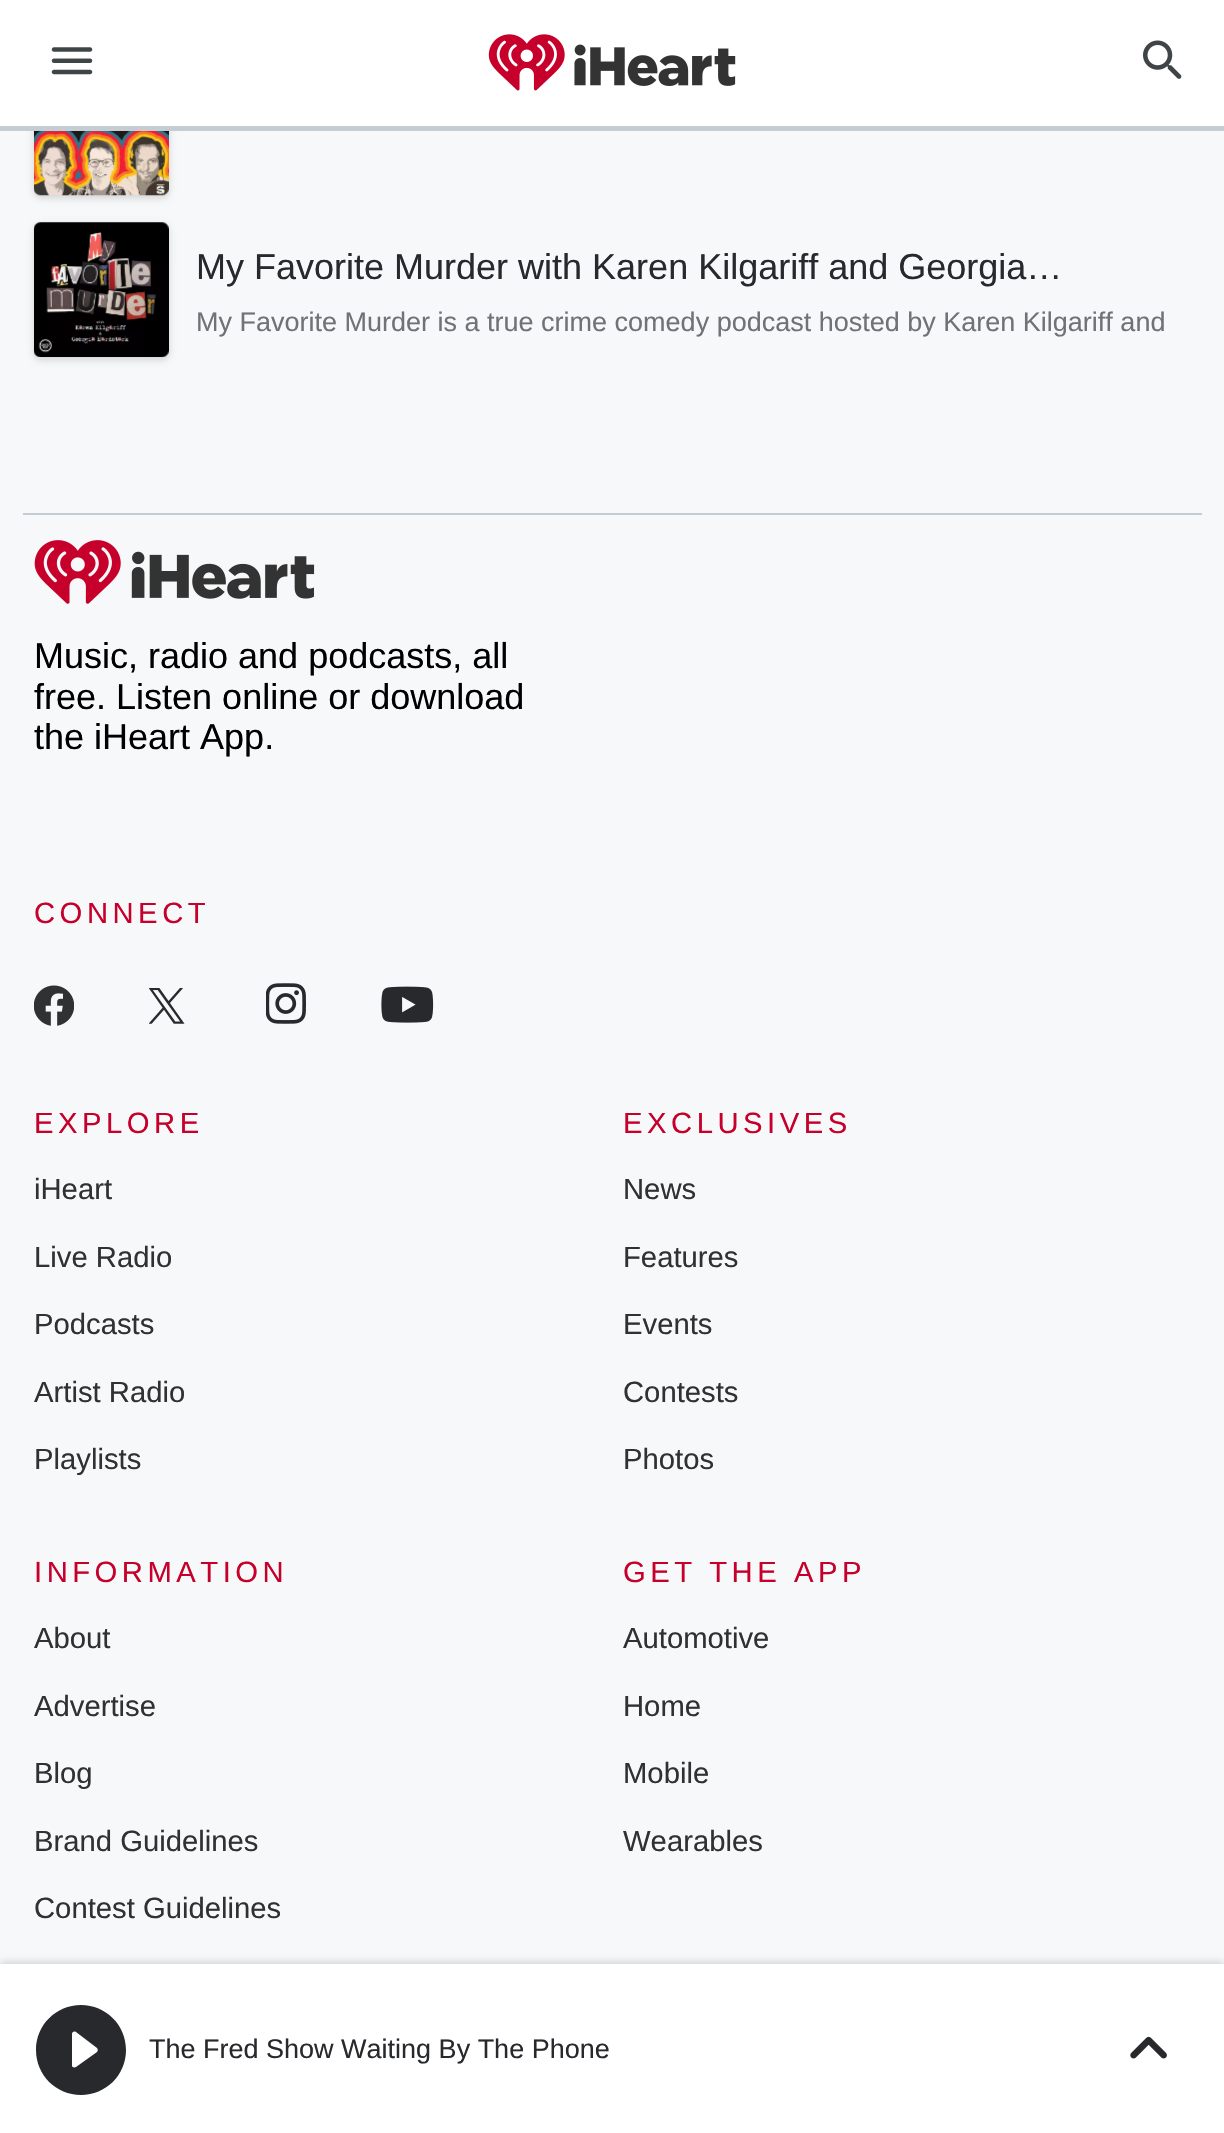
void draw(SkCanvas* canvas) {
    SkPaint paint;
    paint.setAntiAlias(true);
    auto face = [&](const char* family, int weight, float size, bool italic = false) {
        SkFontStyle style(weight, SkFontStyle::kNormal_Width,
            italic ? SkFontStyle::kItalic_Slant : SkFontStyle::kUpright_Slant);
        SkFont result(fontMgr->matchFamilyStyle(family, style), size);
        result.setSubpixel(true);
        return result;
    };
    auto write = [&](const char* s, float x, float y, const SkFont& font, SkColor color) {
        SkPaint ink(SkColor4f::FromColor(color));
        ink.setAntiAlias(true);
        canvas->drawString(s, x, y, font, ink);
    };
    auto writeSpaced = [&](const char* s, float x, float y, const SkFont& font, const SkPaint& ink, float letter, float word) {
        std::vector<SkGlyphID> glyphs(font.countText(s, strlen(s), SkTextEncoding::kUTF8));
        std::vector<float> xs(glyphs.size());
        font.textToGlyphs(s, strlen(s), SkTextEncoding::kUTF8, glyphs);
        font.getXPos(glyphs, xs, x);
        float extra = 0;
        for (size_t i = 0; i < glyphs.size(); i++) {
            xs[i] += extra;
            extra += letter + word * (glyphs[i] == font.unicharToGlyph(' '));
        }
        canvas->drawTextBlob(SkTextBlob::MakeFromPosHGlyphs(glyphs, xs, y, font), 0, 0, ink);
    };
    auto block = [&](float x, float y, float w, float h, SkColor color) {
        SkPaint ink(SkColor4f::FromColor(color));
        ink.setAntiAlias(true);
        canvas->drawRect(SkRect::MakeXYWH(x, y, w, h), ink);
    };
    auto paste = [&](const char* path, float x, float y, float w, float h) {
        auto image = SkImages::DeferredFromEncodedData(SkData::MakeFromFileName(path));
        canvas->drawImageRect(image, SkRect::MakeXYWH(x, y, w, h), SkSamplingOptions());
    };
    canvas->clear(SkColorSetRGB(246, 248, 249));
    paint.setColor(SkColorSetARGB(38, 0, 0, 0));
    paint.setMaskFilter(SkMaskFilter::MakeBlur(kNormal_SkBlurStyle, 3.5f));
    canvas->drawRoundRect(SkRect::MakeXYWH(34, 63, 135, 135), 7, 7, paint);
    paint.setMaskFilter(nullptr);
    block(0, 0, 1224, 126, SK_ColorWHITE);
    block(0, 126, 1224, 5, SkColorSetRGB(197, 205, 210));
    paste("pic1.png", 51, 47, 42, 28);
    paste("pic2.png", 488, 34, 248, 57);
    paste("pic3.png", 1143, 40, 39, 39);
    paste("pic4.png", 34, 131, 135, 65);
    paint.setMaskFilter(SkMaskFilter::MakeBlur(kNormal_SkBlurStyle, 3.5f));
    canvas->drawRoundRect(SkRect::MakeXYWH(34, 225, 135, 135), 7, 7, paint);
    paint.setMaskFilter(nullptr);
    paste("pic5.png", 34, 222, 135, 135);
    auto kFont1 = face("Liberation Sans", 400, 36);
    write("My Favorite Murder with Karen Kilgariff and Georgia…", 196, 279, kFont1, SkColorSetRGB(39, 41, 45));
    auto kFont2 = face("Liberation Sans", 400, 27);
    write("My Favorite Murder is a true crime comedy podcast hosted by Karen Kilgariff and", 196, 331, kFont2, SkColorSetRGB(113, 114, 119));
    block(23, 513, 1179, 2, SkColorSetRGB(197, 205, 210));
    paste("pic6.png", 34, 540, 281, 64);
    write("Music, radio and podcasts, all", 34, 668, kFont1, SK_ColorBLACK);
    write("free. Listen online or download", 34, 709, kFont1, SK_ColorBLACK);
    write("the iHeart App.", 34, 749, kFont1, SK_ColorBLACK);
    auto kFont3 = face("Liberation Sans", 400, 29.25f);
    paint.setColor(SkColorSetRGB(198, 0, 43));
    writeSpaced("CONNECT", 34, 923, kFont3, paint, 4.5f, 0);
    paste("pic7.png", 34, 985, 40, 41);
    paste("pic8.png", 149, 988, 36, 36);
    paste("pic9.png", 266, 983, 40, 41);
    paste("pic10.png", 381, 986, 53, 37);
    writeSpaced("EXPLORE", 34, 1133, kFont3, paint, 4.5f, 0);
    write("iHeart", 34, 1199, kFont3, SkColorSetRGB(47, 49, 51));
    write("Live Radio", 34, 1267, kFont3, SkColorSetRGB(47, 49, 51));
    write("Podcasts", 34, 1334, kFont3, SkColorSetRGB(47, 49, 51));
    write("Artist Radio", 34, 1402, kFont3, SkColorSetRGB(47, 49, 51));
    write("Playlists", 34, 1469, kFont3, SkColorSetRGB(47, 49, 51));
    writeSpaced("EXCLUSIVES", 623, 1133, kFont3, paint, 4.5f, 0);
    write("News", 623, 1199, kFont3, SkColorSetRGB(47, 49, 51));
    write("Features", 623, 1267, kFont3, SkColorSetRGB(47, 49, 51));
    write("Events", 623, 1334, kFont3, SkColorSetRGB(47, 49, 51));
    write("Contests", 623, 1402, kFont3, SkColorSetRGB(47, 49, 51));
    write("Photos", 623, 1469, kFont3, SkColorSetRGB(47, 49, 51));
    writeSpaced("INFORMATION", 34, 1582, kFont3, paint, 4.5f, 0);
    write("About", 34, 1648, kFont3, SkColorSetRGB(47, 49, 51));
    write("Advertise", 34, 1716, kFont3, SkColorSetRGB(47, 49, 51));
    write("Blog", 34, 1783, kFont3, SkColorSetRGB(47, 49, 51));
    write("Brand Guidelines", 34, 1851, kFont3, SkColorSetRGB(47, 49, 51));
    write("Contest Guidelines", 34, 1918, kFont3, SkColorSetRGB(47, 49, 51));
    writeSpaced("GET THE APP", 623, 1582, kFont3, paint, 4.5f, 0);
    write("Automotive", 623, 1648, kFont3, SkColorSetRGB(47, 49, 51));
    write("Home", 623, 1716, kFont3, SkColorSetRGB(47, 49, 51));
    write("Mobile", 623, 1783, kFont3, SkColorSetRGB(47, 49, 51));
    write("Wearables", 623, 1851, kFont3, SkColorSetRGB(47, 49, 51));
    paint.setColor(SkColorSetARGB(38, 0, 0, 0));
    paint.setMaskFilter(SkMaskFilter::MakeBlur(kNormal_SkBlurStyle, 3.5f));
    canvas->drawRect(SkRect::MakeXYWH(0, 1962, 1224, 169), paint);
    paint.setMaskFilter(nullptr);
    block(0, 1964, 1224, 169, SK_ColorWHITE);
    paint.setColor(SkColorSetRGB(39, 41, 45));
    canvas->drawPath(SkPathBuilder().moveTo(81, 2005).cubicTo(56, 2005, 36, 2025, 36, 2050).cubicTo(36, 2075, 56, 2095, 81, 2095).cubicTo(106, 2095, 126, 2075, 126, 2050).cubicTo(126, 2025, 106, 2005, 81, 2005).close().moveTo(72, 2066).lineTo(72, 2034).cubicTo(72, 2032, 74, 2031, 76, 2032).lineTo(97, 2048).cubicTo(98, 2049, 98, 2051, 97, 2052).lineTo(76, 2067).cubicTo(74, 2068, 72, 2067, 72, 2066).close().detach(), paint);
    write("The Fred Show Waiting By The Phone", 149, 2058, kFont2, SkColorSetRGB(39, 41, 45));
    paste("pic11.png", 1130, 2036, 37, 23);
}
